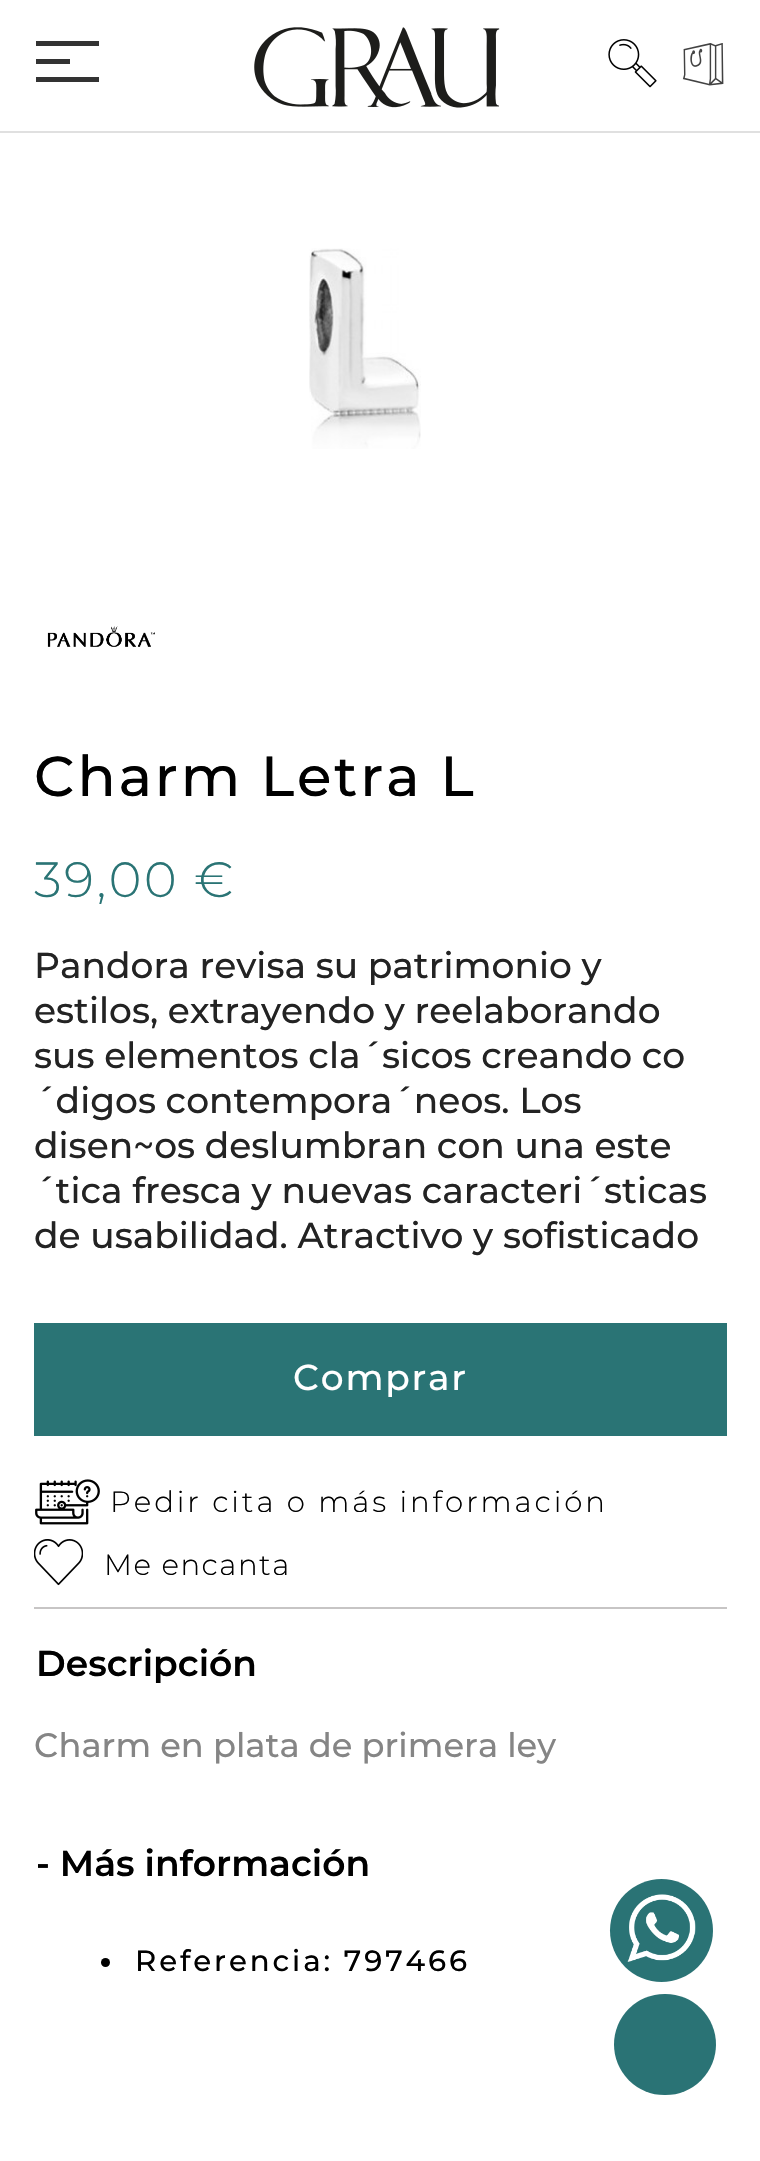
void draw(SkCanvas* canvas) {
    SkPaint paint;
    paint.setAntiAlias(true);
    auto face = [&](const char* family, int weight, float size, bool italic = false) {
        SkFontStyle style(weight, SkFontStyle::kNormal_Width,
            italic ? SkFontStyle::kItalic_Slant : SkFontStyle::kUpright_Slant);
        SkFont result(fontMgr->matchFamilyStyle(family, style), size);
        result.setSubpixel(true);
        return result;
    };
    auto write = [&](const char* s, float x, float y, const SkFont& font, SkColor color) {
        SkPaint ink(SkColor4f::FromColor(color));
        ink.setAntiAlias(true);
        canvas->drawString(s, x, y, font, ink);
    };
    auto writeSpaced = [&](const char* s, float x, float y, const SkFont& font, const SkPaint& ink, float letter, float word) {
        std::vector<SkGlyphID> glyphs(font.countText(s, strlen(s), SkTextEncoding::kUTF8));
        std::vector<float> xs(glyphs.size());
        font.textToGlyphs(s, strlen(s), SkTextEncoding::kUTF8, glyphs);
        font.getXPos(glyphs, xs, x);
        float extra = 0;
        for (size_t i = 0; i < glyphs.size(); i++) {
            xs[i] += extra;
            extra += letter + word * (glyphs[i] == font.unicharToGlyph(' '));
        }
        canvas->drawTextBlob(SkTextBlob::MakeFromPosHGlyphs(glyphs, xs, y, font), 0, 0, ink);
    };
    auto block = [&](float x, float y, float w, float h, SkColor color) {
        SkPaint ink(SkColor4f::FromColor(color));
        ink.setAntiAlias(true);
        canvas->drawRect(SkRect::MakeXYWH(x, y, w, h), ink);
    };
    auto card = [&](float x, float y, float w, float h, float radius, SkColor color) {
        SkPaint ink(SkColor4f::FromColor(color));
        ink.setAntiAlias(true);
        canvas->drawRoundRect(SkRect::MakeXYWH(x, y, w, h), radius, radius, ink);
    };
    auto paste = [&](const char* path, float x, float y, float w, float h) {
        auto image = SkImages::DeferredFromEncodedData(SkData::MakeFromFileName(path));
        canvas->drawImageRect(image, SkRect::MakeXYWH(x, y, w, h), SkSamplingOptions());
    };
    canvas->clear(SK_ColorWHITE);
    block(0, 131, 760, 2, SkColorSetRGB(224, 224, 224));
    block(36, 41, 63, 5, SkColorSetRGB(51, 51, 51));
    block(36, 59, 34, 5, SkColorSetRGB(51, 51, 51));
    block(36, 77, 63, 5, SkColorSetRGB(51, 51, 51));
    paste("pic1.png", 254, 27, 246, 81);
    paste("pic2.png", 608, 39, 49, 49);
    paste("pic3.png", 682, 43, 42, 43);
    paint.setColor(SkColorSetRGB(42, 115, 117));
    canvas->drawCircle(661.5f, 1930.5f, 51.5f, paint);
    paste("pic4.png", 627, 1894, 69, 68);
    paste("pic5.png", 309, 248, 112, 201);
    paste("pic6.png", 47, 626, 108, 21);
    auto kFont1 = face("Montserrat", 500, 56.25f);
    paint.setColor(SK_ColorBLACK);
    writeSpaced("Charm Letra L", 34, 796, kFont1, paint, 2.75f, 0);
    auto kFont2 = face("Montserrat", 300, 49.5f);
    paint.setColor(SkColorSetRGB(42, 116, 117));
    writeSpaced("39,00 €", 34, 897, kFont2, paint, 2.5f, 0);
    auto kFont3 = face("Montserrat", 500, 36);
    write("Pandora revisa su patrimonio y", 34, 978, kFont3, SkColorSetRGB(35, 35, 35));
    write("estilos, extrayendo y reelaborando", 34, 1023, kFont3, SkColorSetRGB(35, 35, 35));
    write("sus elementos cla´sicos creando co", 34, 1068, kFont3, SkColorSetRGB(35, 35, 35));
    write("´digos contempora´neos. Los", 34, 1113, kFont3, SkColorSetRGB(35, 35, 35));
    write("disen~os deslumbran con una este", 34, 1158, kFont3, SkColorSetRGB(35, 35, 35));
    write("´tica fresca y nuevas caracteri´sticas", 34, 1203, kFont3, SkColorSetRGB(35, 35, 35));
    write("de usabilidad. Atractivo y sofisticado", 34, 1248, kFont3, SkColorSetRGB(35, 35, 35));
    block(34, 1323, 693, 113, SkColorSetRGB(42, 116, 117));
    paint.setColor(SK_ColorWHITE);
    writeSpaced("Comprar", 293, 1390, kFont3, paint, 1.75f, 0);
    block(34, 1607, 693, 2, SkColorSetRGB(199, 197, 197));
    paste("pic7.png", 35, 1479, 65, 46);
    auto kFont4 = face("Montserrat", 300, 29.25f);
    paint.setColor(SK_ColorBLACK);
    writeSpaced("Pedir cita o más información", 110, 1512, kFont4, paint, 2.9f, 0);
    paste("pic8.png", 34, 1539, 49, 47);
    writeSpaced("Me encanta", 104, 1575, kFont4, paint, 1.5f, 0);
    auto kFont5 = face("Montserrat", 600, 36);
    write("Descripción", 36, 1676, kFont5, SK_ColorBLACK);
    auto kFont6 = face("Montserrat", 500, 33.75f);
    write("Charm en plata de primera ley", 34, 1757, kFont6, SkColorSetRGB(133, 133, 133));
    write("- Más información", 36, 1876, kFont5, SK_ColorBLACK);
    canvas->drawCircle(105.5f, 1962.5f, 4.5f, paint);
    auto kFont7 = face("Montserrat", 500, 29.25f);
    writeSpaced("Referencia: 797466", 135, 1971, kFont7, paint, 2.9f, 0);
    card(614, 1994, 102, 101, 50.5f, SkColorSetRGB(42, 115, 117));
}
